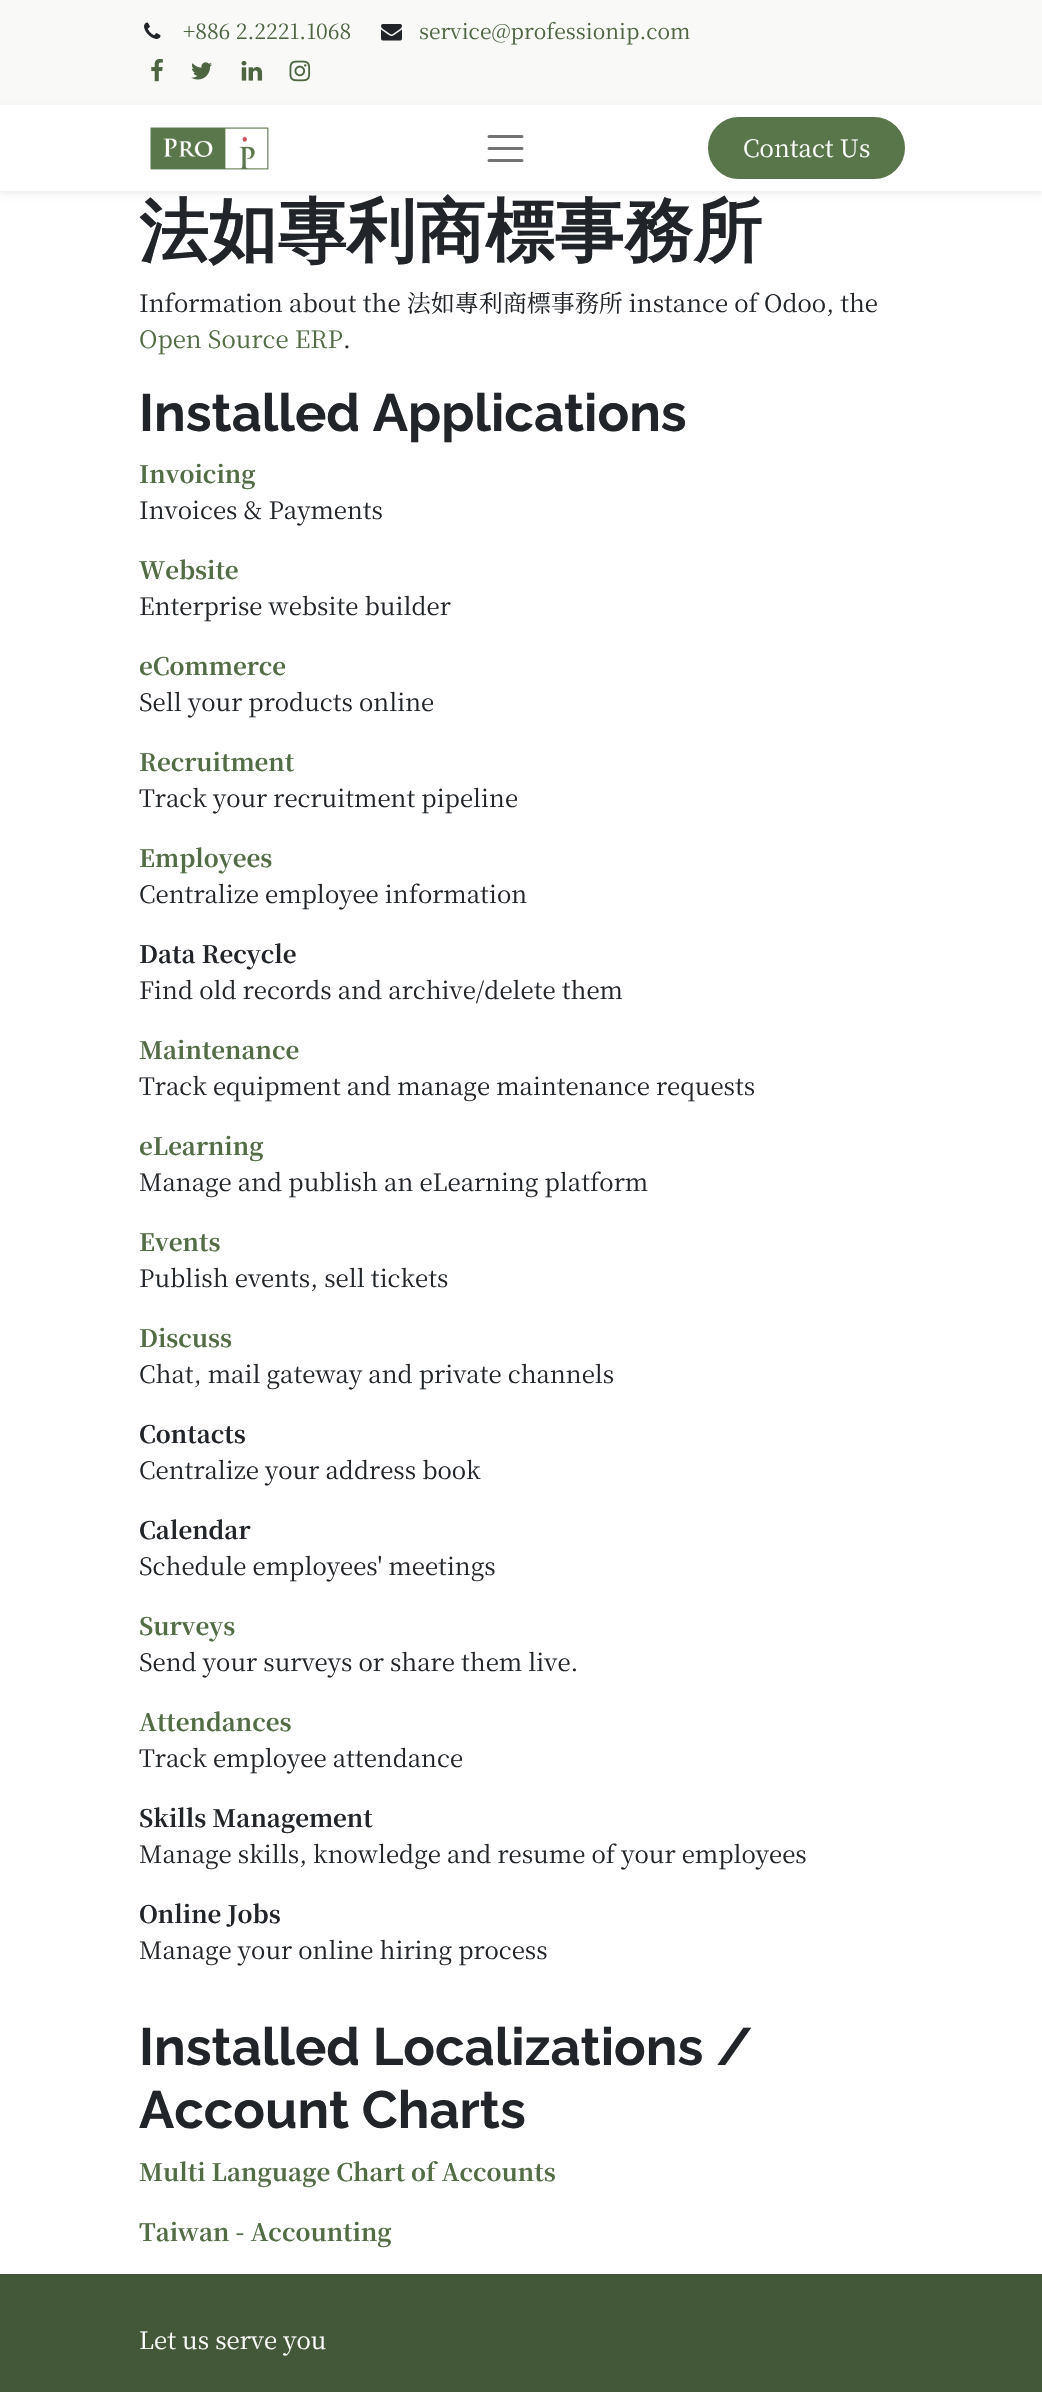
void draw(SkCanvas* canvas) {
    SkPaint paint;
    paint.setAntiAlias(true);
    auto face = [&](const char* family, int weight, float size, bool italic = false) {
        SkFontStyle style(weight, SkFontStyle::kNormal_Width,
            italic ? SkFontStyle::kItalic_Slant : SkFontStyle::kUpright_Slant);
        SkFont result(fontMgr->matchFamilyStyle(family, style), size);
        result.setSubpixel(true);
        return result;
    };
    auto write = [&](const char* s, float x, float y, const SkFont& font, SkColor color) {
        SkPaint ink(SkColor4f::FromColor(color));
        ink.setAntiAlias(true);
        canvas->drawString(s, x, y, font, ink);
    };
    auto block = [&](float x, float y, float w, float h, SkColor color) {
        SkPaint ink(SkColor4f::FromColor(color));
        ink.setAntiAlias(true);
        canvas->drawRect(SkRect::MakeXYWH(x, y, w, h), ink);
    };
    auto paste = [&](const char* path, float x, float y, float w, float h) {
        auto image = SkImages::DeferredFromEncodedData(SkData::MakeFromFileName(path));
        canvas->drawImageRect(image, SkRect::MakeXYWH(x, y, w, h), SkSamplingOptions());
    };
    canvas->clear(SK_ColorWHITE);
    block(0, 0, 1042, 105, SkColorSetRGB(249, 250, 248));
    paste("pic1.png", 144, 22, 17, 17);
    auto kFont1 = face("Noto Serif TC", 400, 21);
    write("+886 2.2221.1068", 183, 39, kFont1, SkColorSetRGB(77, 101, 64));
    paste("pic2.png", 381, 24, 21, 17);
    write("service@professionip.com", 419, 39, kFont1, SkColorSetRGB(77, 101, 64));
    paste("pic3.png", 151, 58, 12, 24);
    paste("pic4.png", 191, 62, 21, 18);
    paste("pic5.png", 241, 60, 22, 21);
    paste("pic6.png", 289, 60, 22, 22);
    paint.setColor(SkColorSetARGB(18, 0, 0, 0));
    paint.setMaskFilter(SkMaskFilter::MakeBlur(kNormal_SkBlurStyle, 3));
    canvas->drawRect(SkRect::MakeXYWH(0, 108, 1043, 86), paint);
    paint.setMaskFilter(nullptr);
    block(0, 105, 1042, 86, SK_ColorWHITE);
    paste("pic7.png", 150, 127, 119, 43);
    paint.setStyle(SkPaint::kStroke_Style);
    paint.setStrokeWidth(3);
    paint.setStrokeCap(SkPaint::kRound_Cap);
    paint.setColor(SkColorSetRGB(115, 115, 115));
    canvas->drawPath(SkPathBuilder().moveTo(489, 136.5f).lineTo(522, 136.5f).moveTo(489, 148.5f).lineTo(522, 148.5f).moveTo(489, 160.5f).lineTo(522, 160.5f).detach(), paint);
    paint.setStyle(SkPaint::kFill_Style);
    paint.setColor(SkColorSetRGB(89, 117, 74));
    canvas->drawRoundRect(SkRect::MakeXYWH(709, 118, 195, 60), 30, 30, paint);
    paint.setStyle(SkPaint::kStroke_Style);
    paint.setStrokeWidth(2);
    paint.setStrokeCap(SkPaint::kButt_Cap);
    canvas->drawRoundRect(SkRect::MakeXYWH(709, 118, 195, 60), 30, 30, paint);
    auto kFont2 = face("Noto Serif TC", 400, 24);
    write("Contact Us", 743, 157, kFont2, SK_ColorWHITE);
    auto kFont3 = face("WenQuanYi Zen Hei", 700, 69.25f);
    write("法如專利商標事務所", 139, 255, kFont3, SkColorSetRGB(33, 37, 41));
    write("Information about the 法如專利商標事務所 instance of Odoo, the", 139, 312, kFont2, SkColorSetRGB(33, 37, 41));
    write("Open Source ERP", 139, 348, kFont2, SkColorSetRGB(82, 108, 68));
    write(".", 343, 348, kFont2, SkColorSetRGB(33, 37, 41));
    auto kFont4 = face("Raleway", 700, 52.4f);
    write("Installed Applications", 139, 431, kFont4, SkColorSetRGB(33, 37, 41));
    auto kFont5 = face("Noto Serif TC", 700, 24);
    write("Invoicing", 139, 483, kFont5, SkColorSetRGB(82, 108, 68));
    write("Invoices & Payments", 139, 519, kFont2, SkColorSetRGB(33, 37, 41));
    write("Website", 139, 579, kFont5, SkColorSetRGB(82, 108, 68));
    write("Enterprise website builder", 139, 615, kFont2, SkColorSetRGB(33, 37, 41));
    write("eCommerce", 139, 675, kFont5, SkColorSetRGB(82, 108, 68));
    write("Sell your products online", 139, 711, kFont2, SkColorSetRGB(33, 37, 41));
    write("Recruitment", 139, 771, kFont5, SkColorSetRGB(82, 108, 68));
    write("Track your recruitment pipeline", 139, 807, kFont2, SkColorSetRGB(33, 37, 41));
    write("Employees", 139, 867, kFont5, SkColorSetRGB(82, 108, 68));
    write("Centralize employee information", 139, 903, kFont2, SkColorSetRGB(33, 37, 41));
    write("Data Recycle", 139, 963, kFont5, SkColorSetRGB(33, 37, 41));
    write("Find old records and archive/delete them", 139, 999, kFont2, SkColorSetRGB(33, 37, 41));
    write("Maintenance", 139, 1059, kFont5, SkColorSetRGB(82, 108, 68));
    write("Track equipment and manage maintenance requests", 139, 1095, kFont2, SkColorSetRGB(33, 37, 41));
    write("eLearning", 139, 1155, kFont5, SkColorSetRGB(82, 108, 68));
    write("Manage and publish an eLearning platform", 139, 1191, kFont2, SkColorSetRGB(33, 37, 41));
    write("Events", 139, 1251, kFont5, SkColorSetRGB(82, 108, 68));
    write("Publish events, sell tickets", 139, 1287, kFont2, SkColorSetRGB(33, 37, 41));
    write("Discuss", 139, 1347, kFont5, SkColorSetRGB(82, 108, 68));
    write("Chat, mail gateway and private channels", 139, 1383, kFont2, SkColorSetRGB(33, 37, 41));
    write("Contacts", 139, 1443, kFont5, SkColorSetRGB(33, 37, 41));
    write("Centralize your address book", 139, 1479, kFont2, SkColorSetRGB(33, 37, 41));
    write("Calendar", 139, 1539, kFont5, SkColorSetRGB(33, 37, 41));
    write("Schedule employees' meetings", 139, 1575, kFont2, SkColorSetRGB(33, 37, 41));
    write("Surveys", 139, 1635, kFont5, SkColorSetRGB(82, 108, 68));
    write("Send your surveys or share them live.", 139, 1671, kFont2, SkColorSetRGB(33, 37, 41));
    write("Attendances", 139, 1731, kFont5, SkColorSetRGB(82, 108, 68));
    write("Track employee attendance", 139, 1767, kFont2, SkColorSetRGB(33, 37, 41));
    write("Skills Management", 139, 1827, kFont5, SkColorSetRGB(33, 37, 41));
    write("Manage skills, knowledge and resume of your employees", 139, 1863, kFont2, SkColorSetRGB(33, 37, 41));
    write("Online Jobs", 139, 1923, kFont5, SkColorSetRGB(33, 37, 41));
    write("Manage your online hiring process", 139, 1959, kFont2, SkColorSetRGB(33, 37, 41));
    write("Installed Localizations /", 139, 2065, kFont4, SkColorSetRGB(33, 37, 41));
    write("Account Charts", 139, 2128, kFont4, SkColorSetRGB(33, 37, 41));
    write("Multi Language Chart of Accounts", 139, 2181, kFont5, SkColorSetRGB(82, 108, 68));
    write("Taiwan - Accounting", 139, 2241, kFont5, SkColorSetRGB(82, 108, 68));
    block(0, 2274, 1042, 118, SkColorSetRGB(67, 88, 56));
    write("Let us serve you", 139, 2349, kFont2, SK_ColorWHITE);
}
